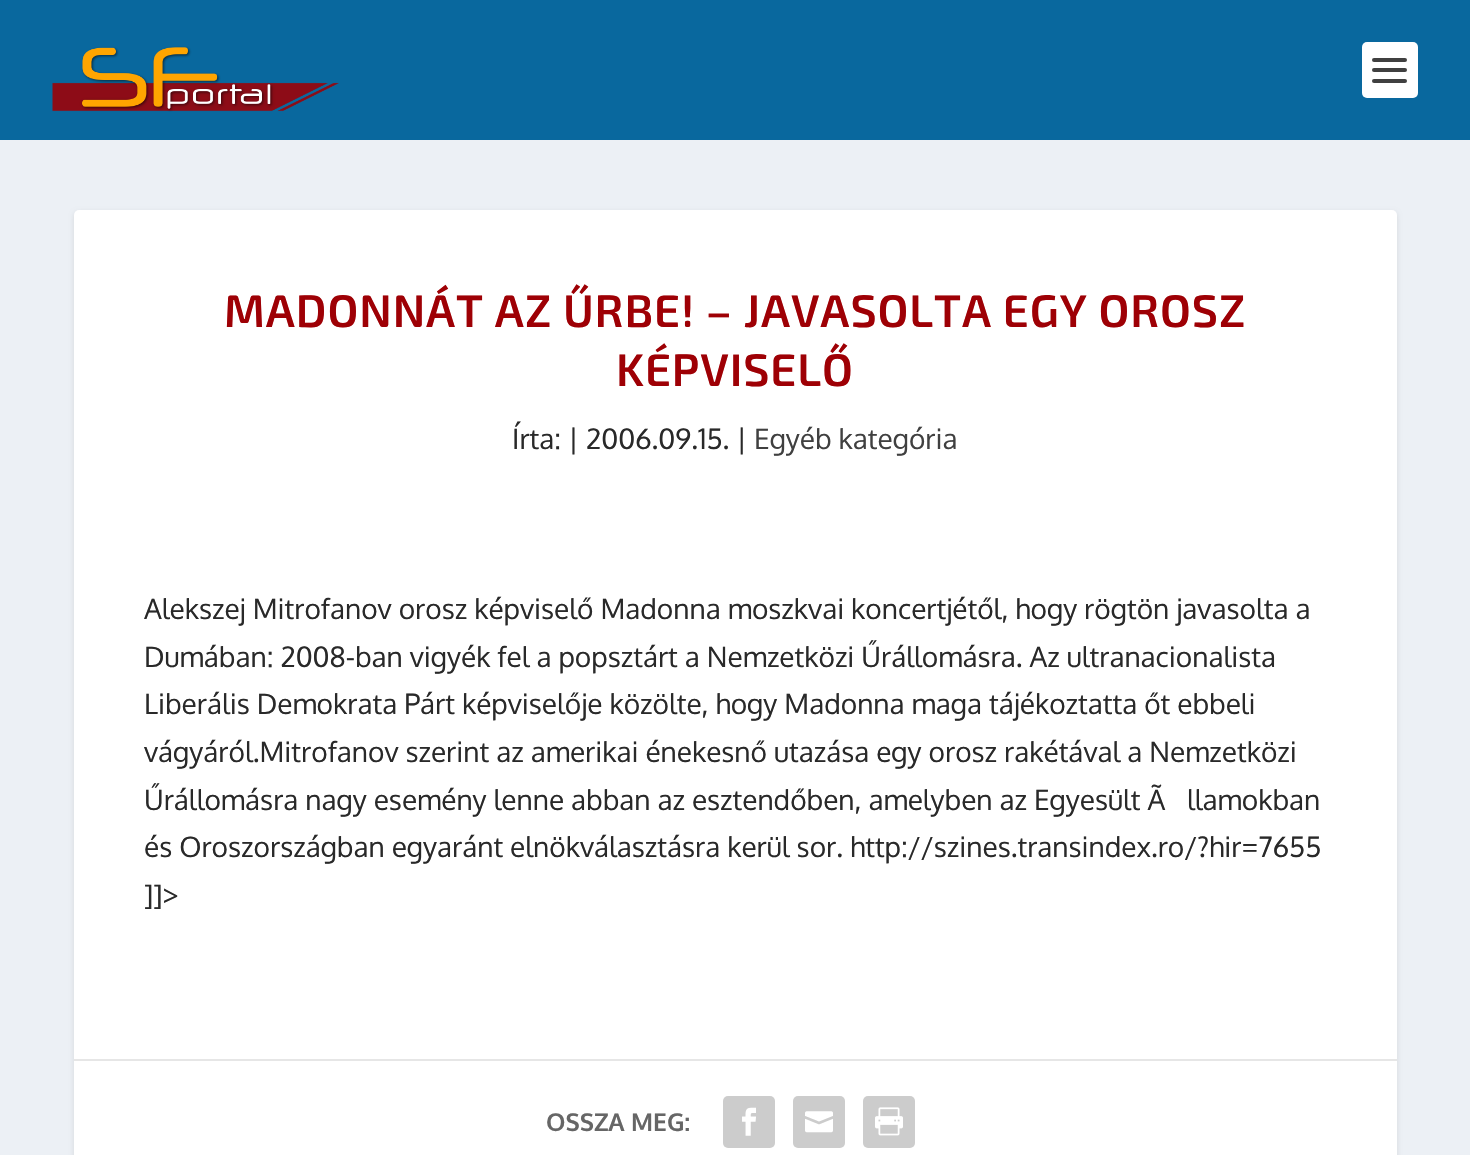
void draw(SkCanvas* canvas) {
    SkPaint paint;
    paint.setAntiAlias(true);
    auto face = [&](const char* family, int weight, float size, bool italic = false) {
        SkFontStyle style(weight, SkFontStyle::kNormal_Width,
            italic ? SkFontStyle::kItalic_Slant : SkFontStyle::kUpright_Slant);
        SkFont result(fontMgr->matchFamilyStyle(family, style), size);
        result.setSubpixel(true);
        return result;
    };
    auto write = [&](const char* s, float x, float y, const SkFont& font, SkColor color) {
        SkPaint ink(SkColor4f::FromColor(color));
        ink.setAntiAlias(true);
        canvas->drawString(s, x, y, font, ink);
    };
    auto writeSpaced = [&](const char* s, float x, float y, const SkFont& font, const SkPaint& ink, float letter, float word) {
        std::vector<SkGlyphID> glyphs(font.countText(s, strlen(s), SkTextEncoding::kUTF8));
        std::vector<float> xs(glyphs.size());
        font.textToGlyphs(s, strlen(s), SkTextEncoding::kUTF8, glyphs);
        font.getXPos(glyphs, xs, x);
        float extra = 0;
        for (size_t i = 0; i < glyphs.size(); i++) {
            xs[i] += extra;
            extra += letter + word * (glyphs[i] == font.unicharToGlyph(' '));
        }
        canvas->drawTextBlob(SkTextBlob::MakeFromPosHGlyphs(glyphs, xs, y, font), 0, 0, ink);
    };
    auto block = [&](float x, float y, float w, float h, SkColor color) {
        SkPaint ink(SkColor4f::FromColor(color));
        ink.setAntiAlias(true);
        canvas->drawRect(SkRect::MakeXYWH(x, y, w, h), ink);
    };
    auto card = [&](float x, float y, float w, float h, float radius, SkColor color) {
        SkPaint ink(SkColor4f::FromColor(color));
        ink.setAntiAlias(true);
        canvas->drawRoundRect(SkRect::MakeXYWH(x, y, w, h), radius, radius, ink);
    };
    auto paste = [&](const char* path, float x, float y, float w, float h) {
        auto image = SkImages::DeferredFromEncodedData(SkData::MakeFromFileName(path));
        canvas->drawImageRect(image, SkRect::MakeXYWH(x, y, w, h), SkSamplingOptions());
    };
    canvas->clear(SkColorSetRGB(236, 240, 245));
    block(0, 0, 1470, 140, SkColorSetRGB(9, 104, 158));
    paste("pic1.png", 52, 46, 287, 66);
    card(1362, 42, 56, 56, 5, SK_ColorWHITE);
    card(1372, 58, 35, 4, 2, SkColorSetRGB(64, 64, 64));
    card(1372, 68, 35, 4, 2, SkColorSetRGB(64, 64, 64));
    card(1372, 79, 35, 4, 2, SkColorSetRGB(64, 64, 64));
    paint.setColor(SkColorSetARGB(26, 0, 0, 0));
    paint.setMaskFilter(SkMaskFilter::MakeBlur(kNormal_SkBlurStyle, 2.5f));
    canvas->drawRoundRect(SkRect::MakeXYWH(74, 212, 1323, 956), 5, 5, paint);
    paint.setMaskFilter(nullptr);
    card(74, 210, 1323, 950, 5, SK_ColorWHITE);
    auto kFont1 = face("Exo 2", 600, 45.5f);
    paint.setColor(SkColorSetRGB(158, 0, 5));
    writeSpaced("MADONNÁT AZ ŰRBE! – JAVASOLTA EGY OROSZ", 224, 327, kFont1, paint, 0.9f, 0);
    writeSpaced("KÉPVISELŐ", 616, 386, kFont1, paint, 0.9f, 0);
    auto kFont2 = face("Oxygen", 400, 28);
    write("Írta: | 2006.09.15. |", 512, 449, kFont2, SkColorSetRGB(41, 41, 41));
    write("Egyéb kategória", 754, 449, kFont2, SkColorSetRGB(64, 64, 64));
    write("Alekszej Mitrofanov orosz képviselő Madonna moszkvai koncertjétől, hogy rögtön javasolta a", 144, 619, kFont2, SkColorSetRGB(41, 41, 41));
    write("Dumában: 2008-ban vigyék fel a popsztárt a Nemzetközi Űrállomásra. Az ultranacionalista", 144, 667, kFont2, SkColorSetRGB(41, 41, 41));
    write("Liberális Demokrata Párt képviselője közölte, hogy Madonna maga tájékoztatta őt ebbeli", 144, 714, kFont2, SkColorSetRGB(41, 41, 41));
    write("vágyáról.Mitrofanov szerint az amerikai énekesnő utazása egy orosz rakétával a Nemzetközi", 144, 762, kFont2, SkColorSetRGB(41, 41, 41));
    write("Űrállomásra nagy esemény lenne abban az esztendőben, amelyben az Egyesült Ã", 144, 810, kFont2, SkColorSetRGB(41, 41, 41));
    write("llamokban", 1187, 810, kFont2, SkColorSetRGB(41, 41, 41));
    write("és Oroszországban egyaránt elnökválasztásra kerül sor. http://szines.transindex.ro/?hir=7655", 144, 857, kFont2, SkColorSetRGB(41, 41, 41));
    write("]]>", 144, 905, kFont2, SkColorSetRGB(41, 41, 41));
    block(74, 1059, 1323, 2, SkColorSetRGB(230, 230, 230));
    auto kFont3 = face("Oxygen", 700, 24.5f);
    write("OSSZA MEG:", 546, 1131, kFont3, SkColorSetRGB(102, 102, 102));
    card(723, 1096, 52, 52, 5, SkColorSetRGB(204, 204, 204));
    paste("pic2.png", 742, 1107, 14, 29);
    card(793, 1096, 52, 52, 5, SkColorSetRGB(204, 204, 204));
    paste("pic3.png", 805, 1111, 28, 22);
    card(863, 1096, 52, 52, 5, SkColorSetRGB(204, 204, 204));
    paste("pic4.png", 875, 1107, 28, 29);
}
